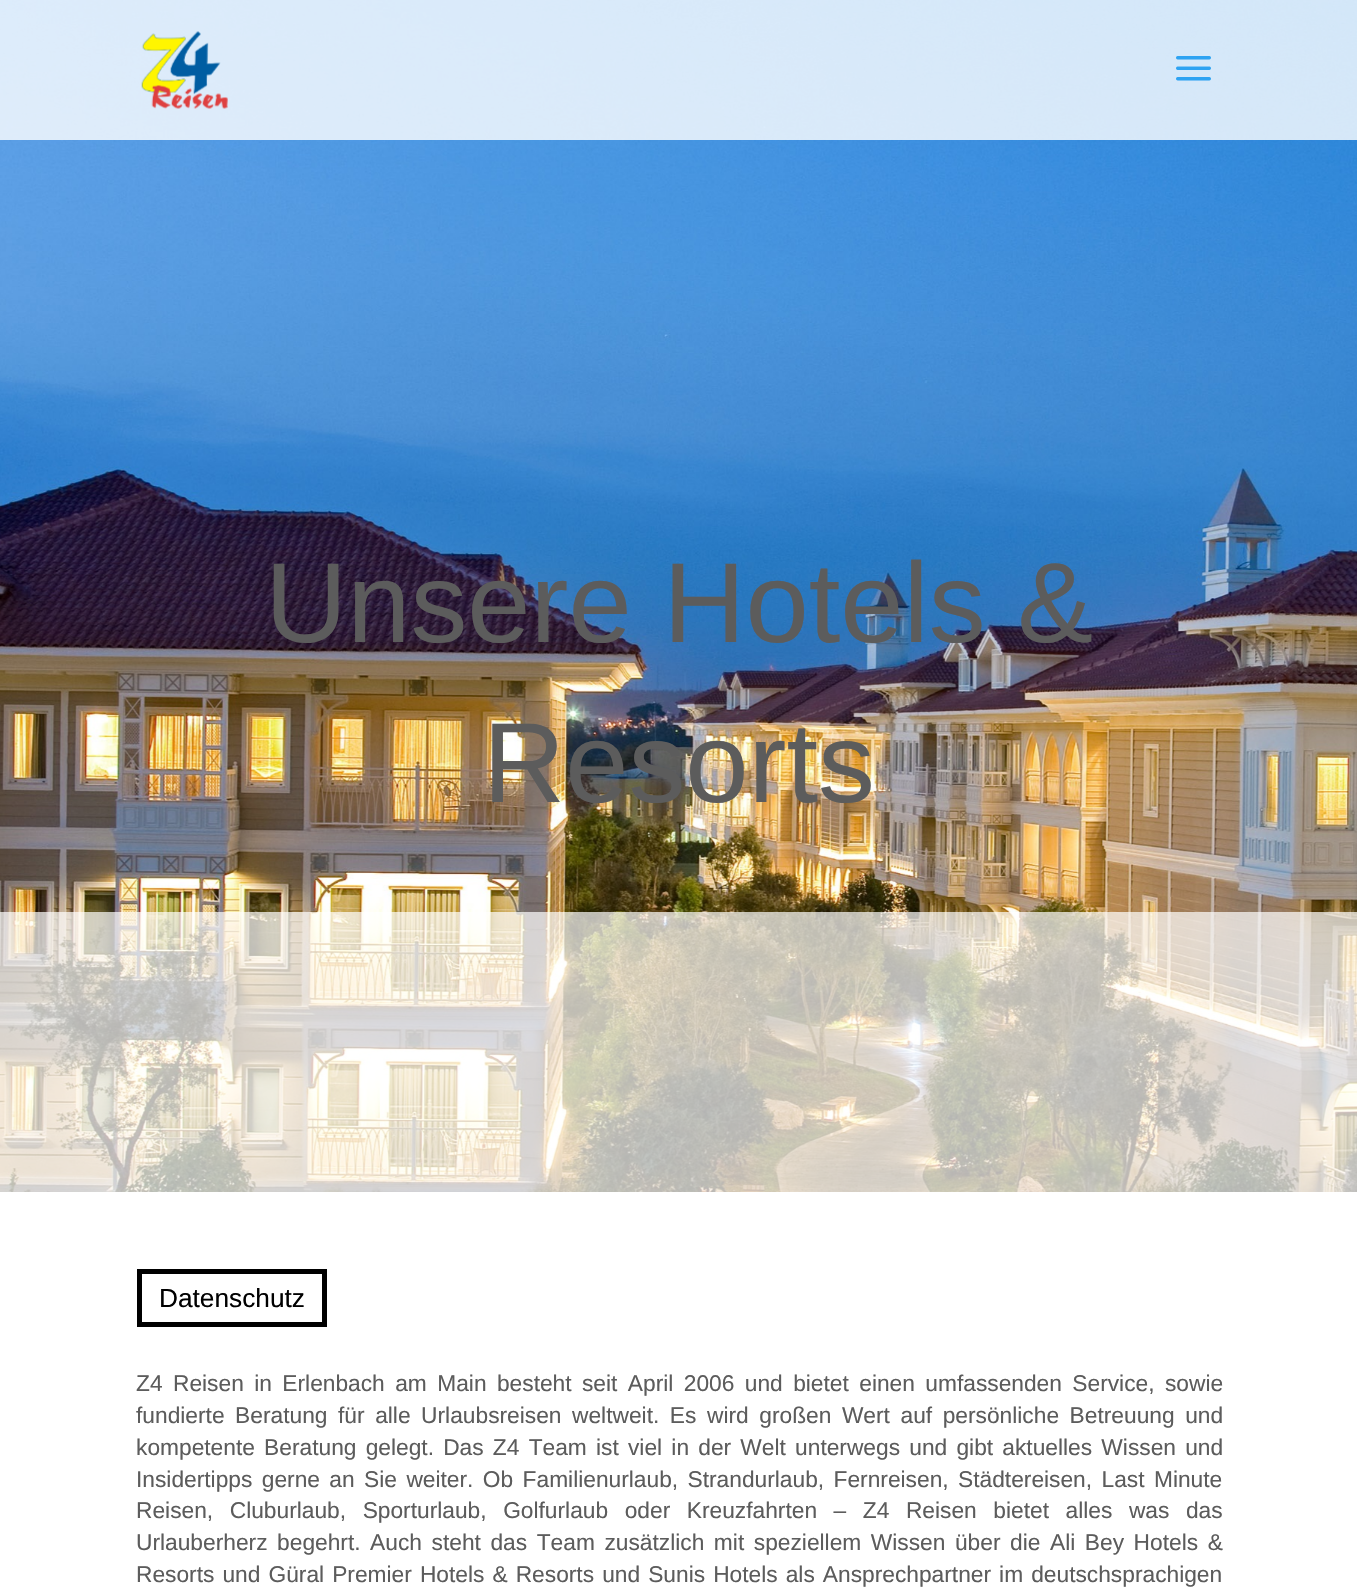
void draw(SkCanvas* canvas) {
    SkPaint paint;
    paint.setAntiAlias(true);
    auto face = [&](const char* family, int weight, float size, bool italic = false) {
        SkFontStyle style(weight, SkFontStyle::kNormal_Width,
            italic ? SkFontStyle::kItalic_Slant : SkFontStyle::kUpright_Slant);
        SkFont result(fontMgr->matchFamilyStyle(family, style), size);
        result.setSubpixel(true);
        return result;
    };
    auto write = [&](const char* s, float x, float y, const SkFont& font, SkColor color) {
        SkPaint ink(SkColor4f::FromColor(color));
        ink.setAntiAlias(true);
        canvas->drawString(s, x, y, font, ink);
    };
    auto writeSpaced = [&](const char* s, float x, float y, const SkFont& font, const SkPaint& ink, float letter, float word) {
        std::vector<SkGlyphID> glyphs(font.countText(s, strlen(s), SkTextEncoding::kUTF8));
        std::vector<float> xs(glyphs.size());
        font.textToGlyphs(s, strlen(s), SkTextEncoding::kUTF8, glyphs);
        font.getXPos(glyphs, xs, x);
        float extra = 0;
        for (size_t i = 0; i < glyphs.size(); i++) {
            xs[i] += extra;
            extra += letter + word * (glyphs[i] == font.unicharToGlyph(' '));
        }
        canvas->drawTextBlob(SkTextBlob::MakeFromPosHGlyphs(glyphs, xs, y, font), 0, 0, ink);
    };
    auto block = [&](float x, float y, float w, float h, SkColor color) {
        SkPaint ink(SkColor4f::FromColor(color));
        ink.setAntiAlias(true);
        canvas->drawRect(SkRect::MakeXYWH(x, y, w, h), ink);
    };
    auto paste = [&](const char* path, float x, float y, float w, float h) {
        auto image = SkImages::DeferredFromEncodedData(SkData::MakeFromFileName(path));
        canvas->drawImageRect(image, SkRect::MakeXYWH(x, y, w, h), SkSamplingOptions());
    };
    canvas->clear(SK_ColorWHITE);
    paste("pic1.png", 0, 0, 1357, 1192);
    block(0, 0, 1357, 140, SkColorSetARGB(204, 255, 255, 255));
    paste("pic2.png", 141, 31, 87, 78);
    paste("pic3.png", 1176, 56, 35, 25);
    auto kFont1 = face("Liberation Sans", 400, 113.75f);
    write("Unsere Hotels &", 265, 642, kFont1, SkColorSetRGB(92, 92, 92));
    write("Resorts", 483, 802, kFont1, SkColorSetRGB(92, 92, 92));
    block(0, 912, 1357, 280, SkColorSetARGB(179, 255, 255, 255));
    paint.setStyle(SkPaint::kStroke_Style);
    paint.setStrokeWidth(5);
    paint.setColor(SK_ColorBLACK);
    canvas->drawRect(SkRect::MakeXYWH(139.5f, 1271.5f, 185, 53), paint);
    auto kFont2 = face("Liberation Sans", 400, 26.25f);
    write("Datenschutz", 159, 1307, kFont2, SK_ColorBLACK);
    auto kFont3 = face("Liberation Sans", 400, 22.75f);
    paint.setStyle(SkPaint::kFill_Style);
    paint.setColor(SkColorSetRGB(92, 92, 92));
    writeSpaced("Z4 Reisen in Erlenbach am Main besteht seit April 2006 und bietet einen umfassenden Service, sowie", 136, 1391, kFont3, paint, 0, 4.1f);
    writeSpaced("fundierte Beratung für alle Urlaubsreisen weltweit. Es wird großen Wert auf persönliche Betreuung und", 136, 1423, kFont3, paint, 0, 4.25f);
    writeSpaced("kompetente Beratung gelegt. Das Z4 Team ist viel in der Welt unterwegs und gibt aktuelles Wissen und", 136, 1455, kFont3, paint, 0, 2.9f);
    writeSpaced("Insidertipps gerne an Sie weiter. Ob Familienurlaub, Strandurlaub, Fernreisen, Städtereisen, Last Minute", 136, 1487, kFont3, paint, 0, 3.1f);
    writeSpaced("Reisen, Cluburlaub, Sporturlaub, Golfurlaub oder Kreuzfahrten – Z4 Reisen bietet alles was das", 136, 1518, kFont3, paint, 0, 10.25f);
    writeSpaced("Urlauberherz begehrt. Auch steht das Team zusätzlich mit speziellem Wissen über die Ali Bey Hotels &", 136, 1550, kFont3, paint, 0, 3.25f);
    writeSpaced("Resorts und Güral Premier Hotels & Resorts und Sunis Hotels als Ansprechpartner im deutschsprachigen", 136, 1582, kFont3, paint, 0, 1.75f);
}
